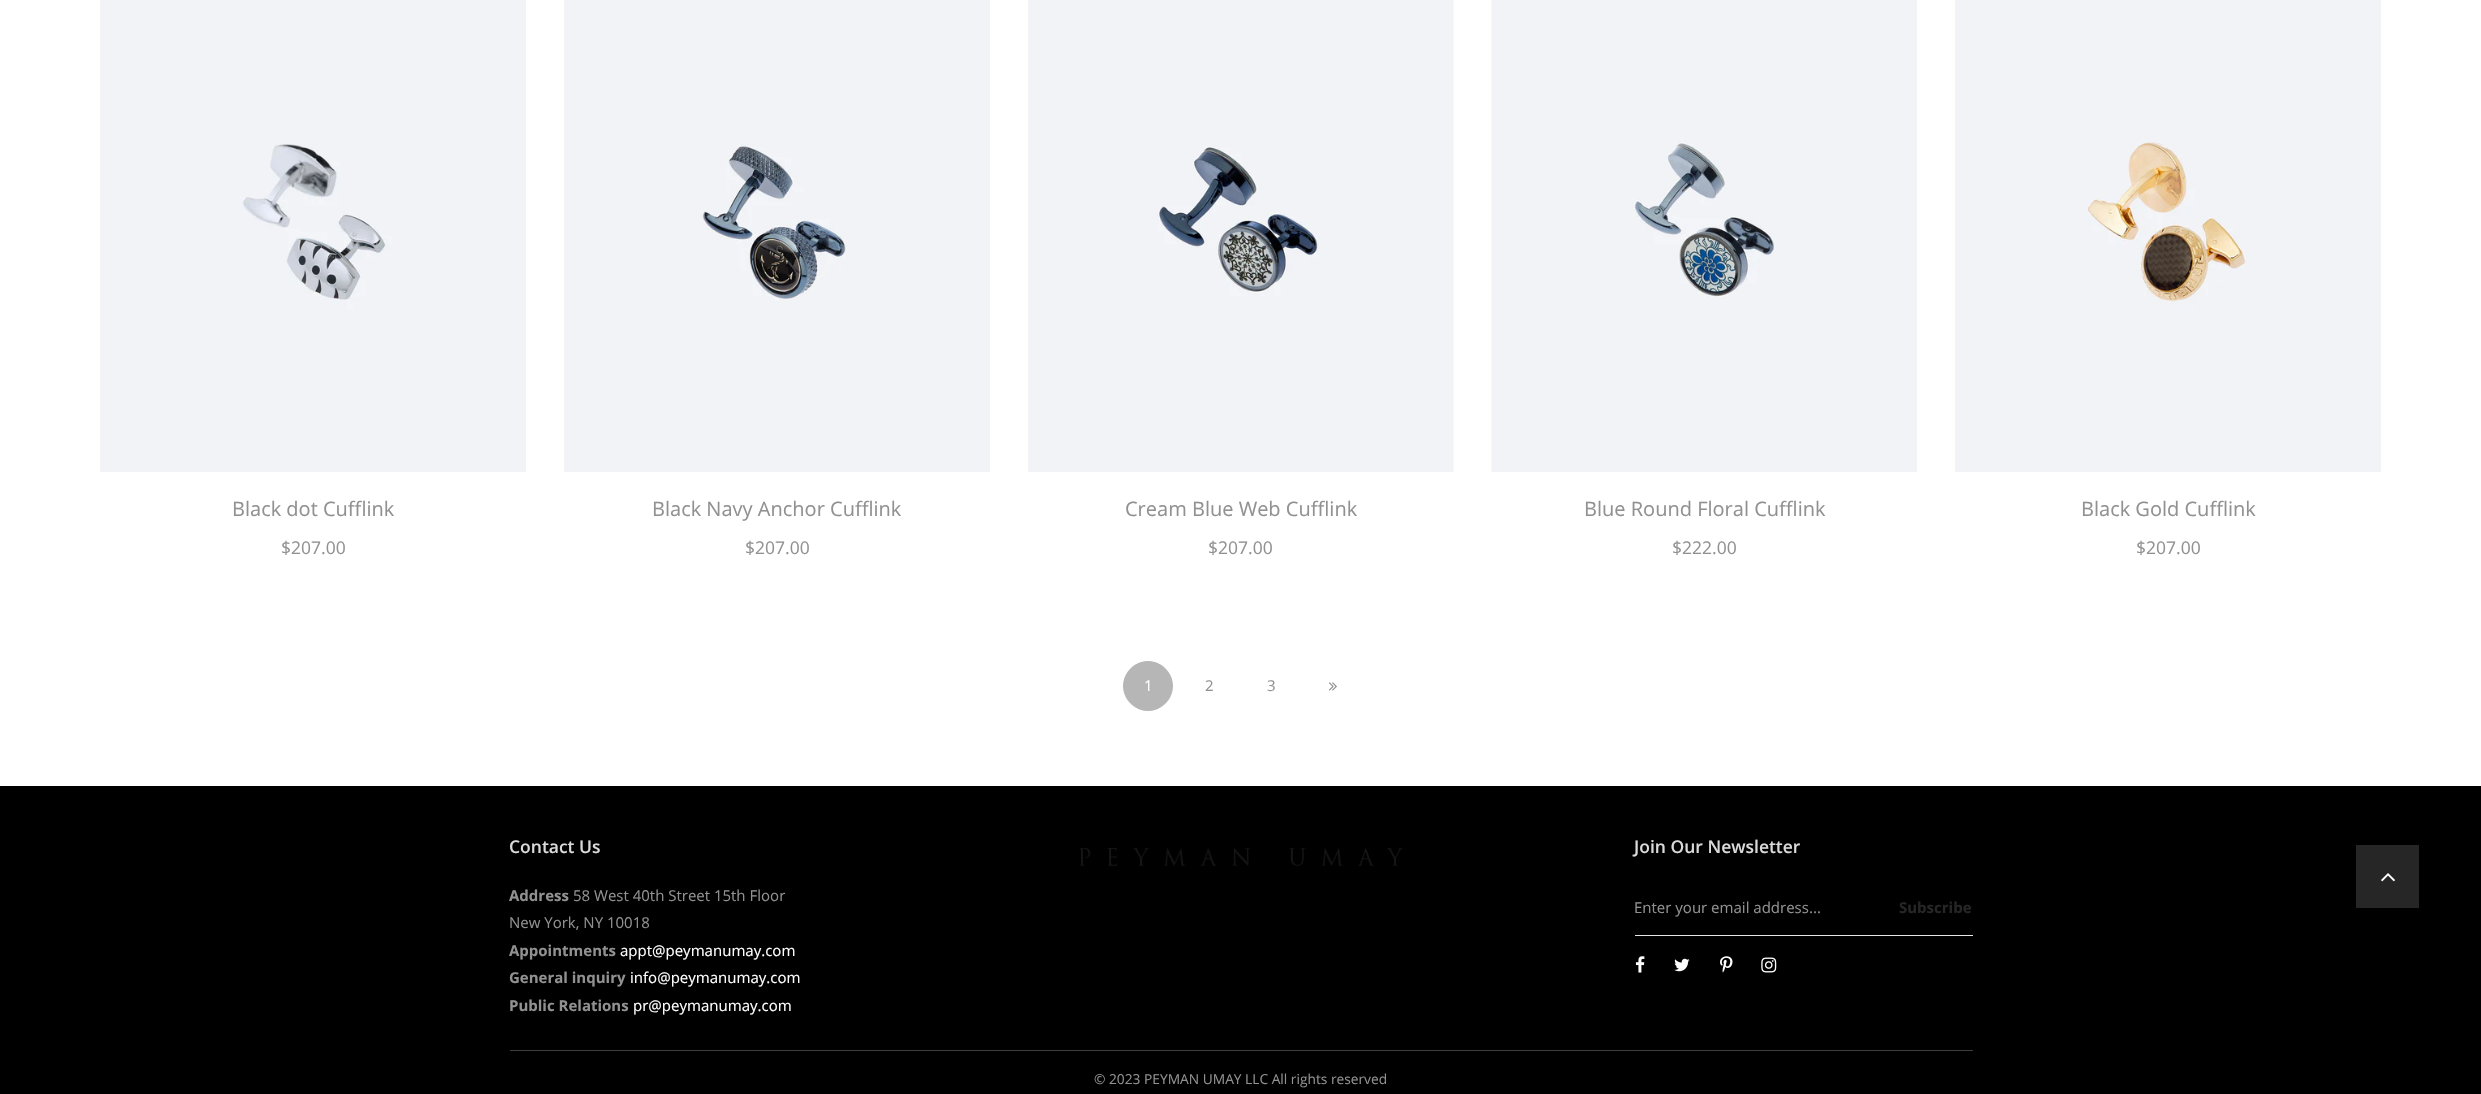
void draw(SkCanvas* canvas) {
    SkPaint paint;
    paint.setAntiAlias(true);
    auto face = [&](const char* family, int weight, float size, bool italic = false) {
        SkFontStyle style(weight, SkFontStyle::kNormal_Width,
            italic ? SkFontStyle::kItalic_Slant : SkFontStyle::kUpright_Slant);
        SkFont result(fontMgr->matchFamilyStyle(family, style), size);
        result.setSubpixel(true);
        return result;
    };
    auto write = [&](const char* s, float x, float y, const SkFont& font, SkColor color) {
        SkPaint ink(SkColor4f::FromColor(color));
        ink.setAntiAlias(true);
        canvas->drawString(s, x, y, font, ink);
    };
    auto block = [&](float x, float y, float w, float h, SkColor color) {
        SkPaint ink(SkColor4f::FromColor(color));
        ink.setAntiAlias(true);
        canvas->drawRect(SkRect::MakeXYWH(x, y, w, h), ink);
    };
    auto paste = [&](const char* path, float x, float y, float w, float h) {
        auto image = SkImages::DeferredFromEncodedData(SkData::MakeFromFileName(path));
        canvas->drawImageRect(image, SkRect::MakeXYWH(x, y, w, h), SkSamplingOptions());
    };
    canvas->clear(SK_ColorWHITE);
    paste("pic1.png", 100, 0, 426, 472);
    auto kFont1 = face("Open Sans", 400, 20);
    write("Black dot Cufflink", 232, 516, kFont1, SkColorSetRGB(145, 145, 145));
    auto kFont2 = face("Open Sans", 400, 17.5f);
    write("$207.00", 281, 554, kFont2, SkColorSetRGB(145, 145, 145));
    paste("pic2.png", 564, 0, 426, 472);
    write("Black Navy Anchor Cufflink", 652, 516, kFont1, SkColorSetRGB(145, 145, 145));
    write("$207.00", 745, 554, kFont2, SkColorSetRGB(145, 145, 145));
    paste("pic3.png", 1028, 0, 426, 472);
    write("Cream Blue Web Cufflink", 1125, 516, kFont1, SkColorSetRGB(145, 145, 145));
    write("$207.00", 1208, 554, kFont2, SkColorSetRGB(145, 145, 145));
    paste("pic4.png", 1491, 0, 426, 472);
    write("Blue Round Floral Cufflink", 1584, 516, kFont1, SkColorSetRGB(145, 145, 145));
    write("$222.00", 1672, 554, kFont2, SkColorSetRGB(145, 145, 145));
    paste("pic5.png", 1955, 0, 426, 472);
    write("Black Gold Cufflink", 2081, 516, kFont1, SkColorSetRGB(145, 145, 145));
    write("$207.00", 2136, 554, kFont2, SkColorSetRGB(145, 145, 145));
    paint.setColor(SkColorSetRGB(182, 182, 182));
    canvas->drawCircle(1148, 686, 24.5f, paint);
    paint.setStyle(SkPaint::kStroke_Style);
    paint.setStrokeWidth(1);
    canvas->drawCircle(1148, 686, 24.5f, paint);
    auto kFont3 = face("Open Sans", 400, 15);
    write("1", 1144, 691, kFont3, SK_ColorWHITE);
    write("2", 1205, 691, kFont3, SkColorSetRGB(145, 145, 145));
    write("3", 1267, 691, kFont3, SkColorSetRGB(145, 145, 145));
    paste("pic6.png", 1329, 682, 8, 9);
    block(0, 786, 2481, 308, SK_ColorBLACK);
    auto kFont4 = face("Open Sans", 600, 17.5f);
    write("Contact Us", 509, 853, kFont4, SkColorSetRGB(218, 218, 218));
    auto kFont5 = face("Open Sans", 700, 15);
    write("Address", 509, 901, kFont5, SkColorSetRGB(145, 145, 145));
    write("58 West 40th Street 15th Floor", 573, 901, kFont3, SkColorSetRGB(145, 145, 145));
    write("New York, NY 10018", 509, 928, kFont3, SkColorSetRGB(145, 145, 145));
    write("Appointments", 509, 956, kFont5, SkColorSetRGB(145, 145, 145));
    write("appt@peymanumay.com", 620, 956, kFont3, SK_ColorWHITE);
    write("General inquiry", 509, 983, kFont5, SkColorSetRGB(145, 145, 145));
    write("info@peymanumay.com", 630, 983, kFont3, SK_ColorWHITE);
    write("Public Relations", 509, 1011, kFont5, SkColorSetRGB(145, 145, 145));
    write("pr@peymanumay.com", 633, 1011, kFont3, SK_ColorWHITE);
    paste("pic7.png", 1079, 848, 324, 18);
    write("Join Our Newsletter", 1634, 853, kFont4, SkColorSetRGB(218, 218, 218));
    block(1635, 935, 338, 1, SkColorSetRGB(231, 231, 231));
    write("Enter your email address...", 1634, 913, kFont3, SkColorSetRGB(145, 145, 145));
    write("Subscribe", 1899, 913, kFont5, SkColorSetRGB(38, 38, 38));
    paste("pic8.png", 1635, 956, 10, 17);
    paste("pic9.png", 1674, 958, 16, 14);
    paste("pic10.png", 1720, 956, 13, 17);
    paste("pic11.png", 1761, 957, 16, 16);
    block(510, 1050, 1463, 1, SkColorSetRGB(62, 62, 62));
    auto kFont6 = face("Open Sans", 400, 13.75f);
    write("© 2023 PEYMAN UMAY LLC All rights reserved", 1094, 1084, kFont6, SkColorSetRGB(145, 145, 145));
    block(2356, 845, 63, 63, SkColorSetRGB(38, 38, 38));
    paste("pic12.png", 2381, 873, 14, 9);
}
